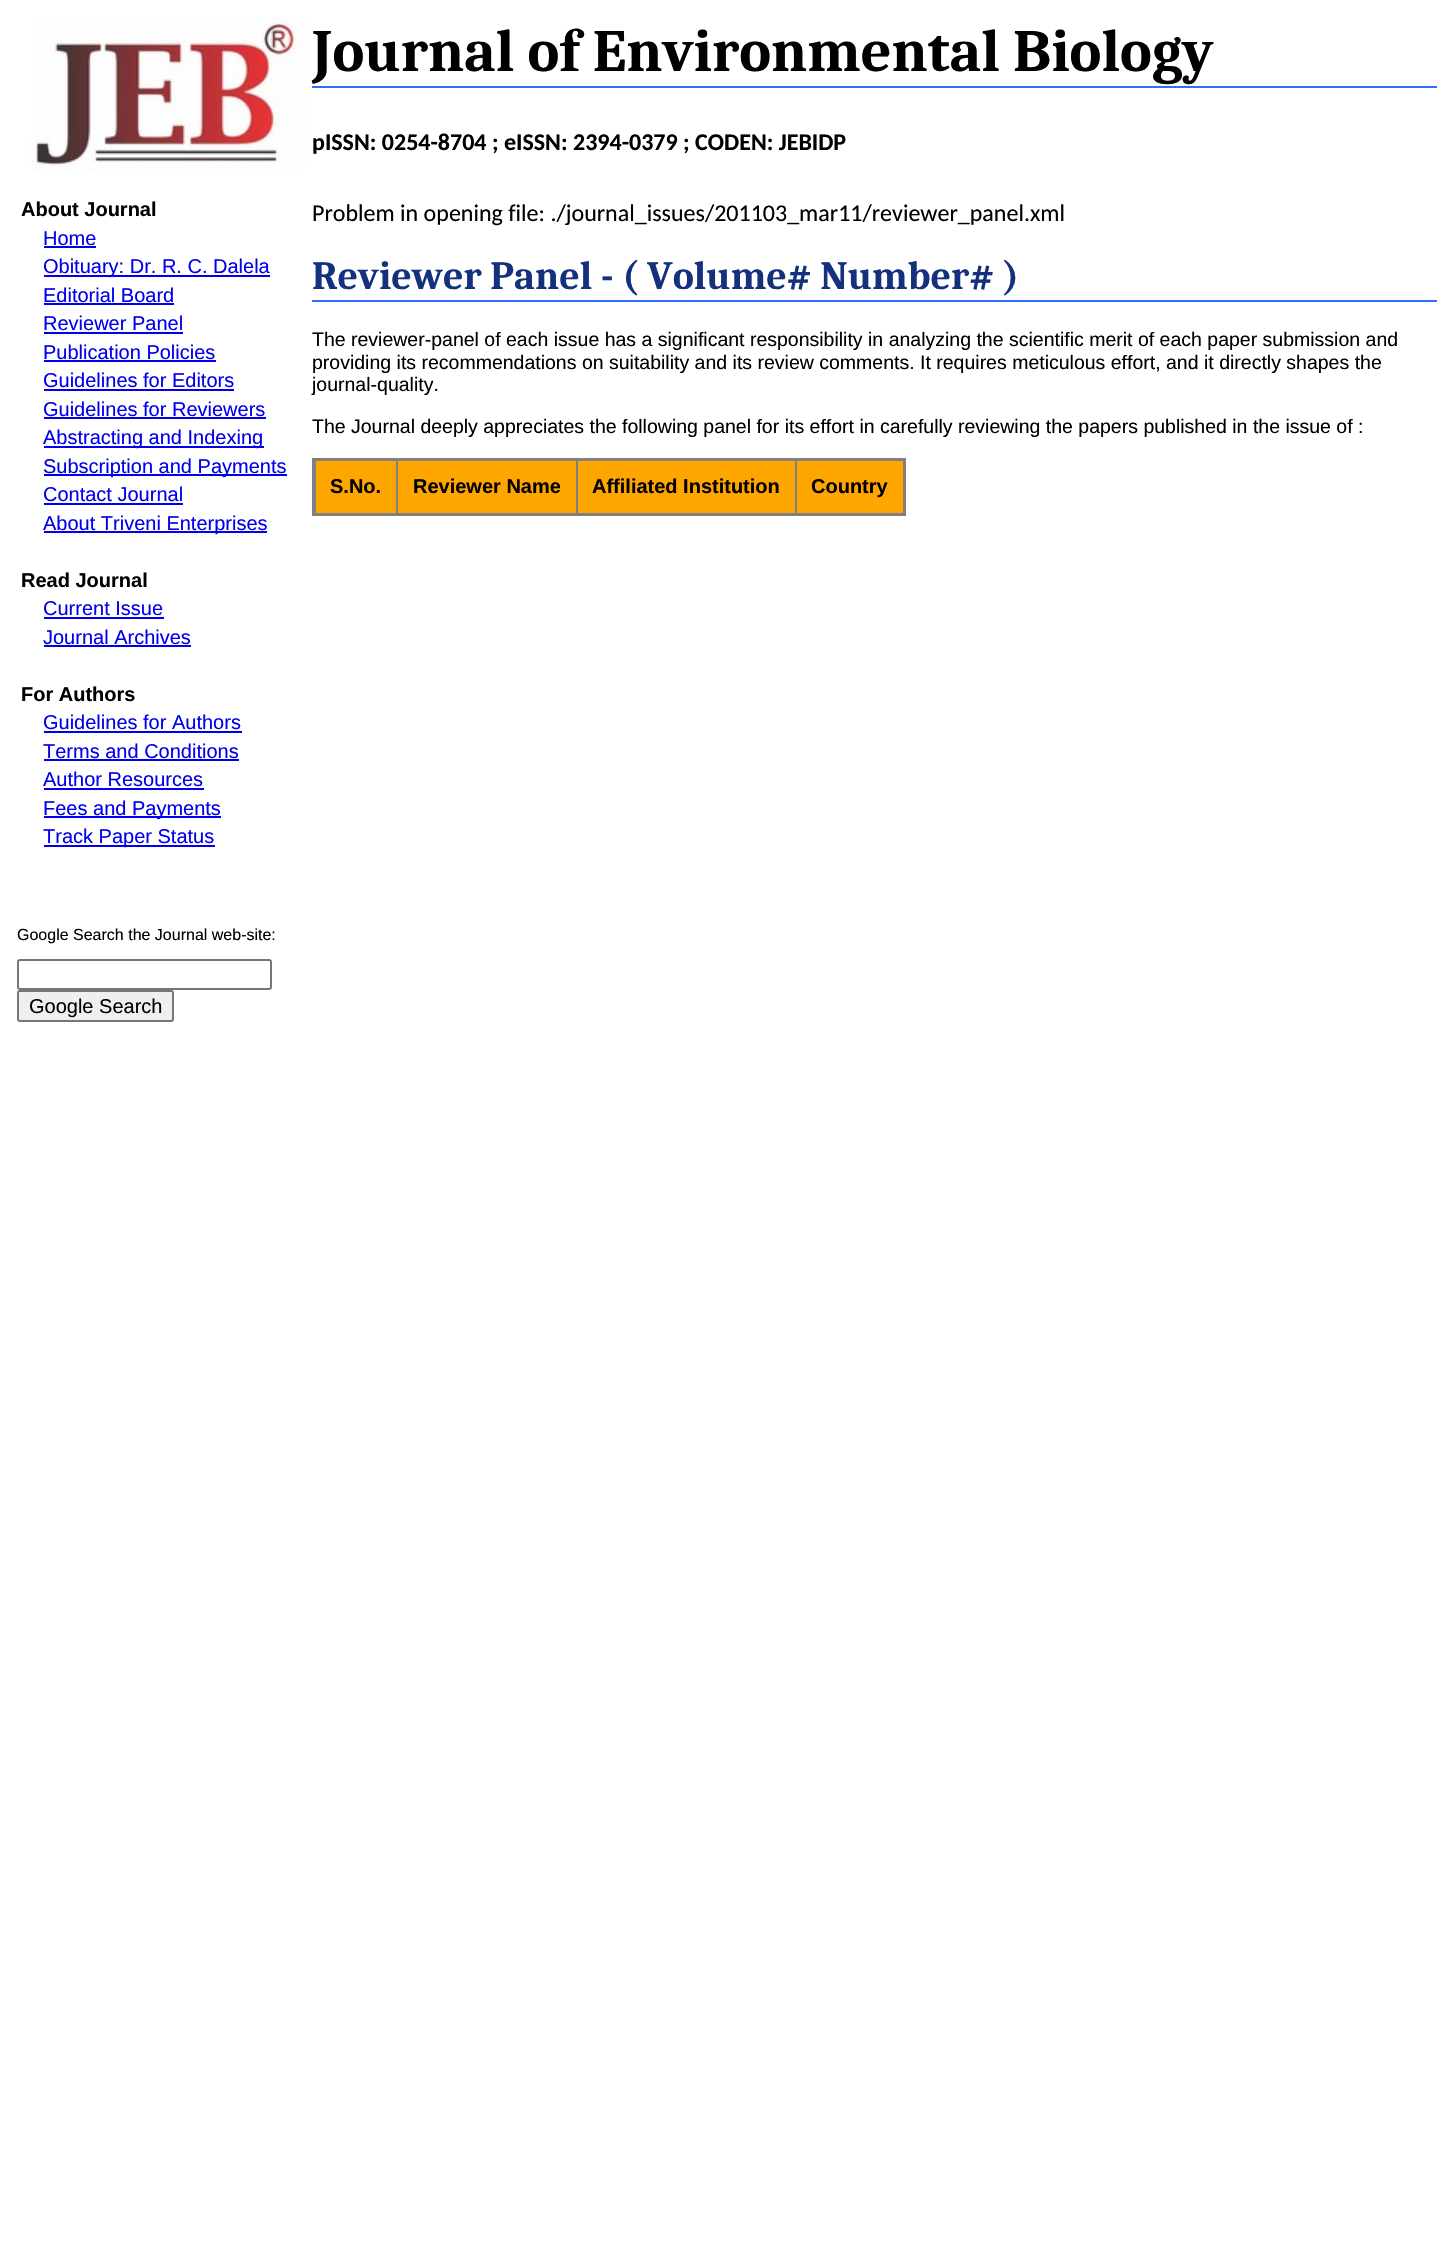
void draw(SkCanvas* canvas) {
    SkPaint paint;
    paint.setAntiAlias(true);
    auto face = [&](const char* family, int weight, float size, bool italic = false) {
        SkFontStyle style(weight, SkFontStyle::kNormal_Width,
            italic ? SkFontStyle::kItalic_Slant : SkFontStyle::kUpright_Slant);
        SkFont result(fontMgr->matchFamilyStyle(family, style), size);
        result.setSubpixel(true);
        return result;
    };
    auto write = [&](const char* s, float x, float y, const SkFont& font, SkColor color) {
        SkPaint ink(SkColor4f::FromColor(color));
        ink.setAntiAlias(true);
        canvas->drawString(s, x, y, font, ink);
    };
    auto block = [&](float x, float y, float w, float h, SkColor color) {
        SkPaint ink(SkColor4f::FromColor(color));
        ink.setAntiAlias(true);
        canvas->drawRect(SkRect::MakeXYWH(x, y, w, h), ink);
    };
    auto paste = [&](const char* path, float x, float y, float w, float h) {
        auto image = SkImages::DeferredFromEncodedData(SkData::MakeFromFileName(path));
        canvas->drawImageRect(image, SkRect::MakeXYWH(x, y, w, h), SkSamplingOptions());
    };
    canvas->clear(SK_ColorWHITE);
    paste("pic1.png", 31, 16, 275, 155);
    block(312, 86, 1125, 2, SkColorSetRGB(48, 110, 255));
    auto kFont1 = face("Caladea", 700, 60);
    write("Journal of Environmental Biology", 312, 71, kFont1, SK_ColorBLACK);
    auto kFont2 = face("Carlito", 700, 24);
    write("pISSN: 0254-8704 ; eISSN: 2394-0379 ; CODEN: JEBIDP", 312, 150, kFont2, SK_ColorBLACK);
    auto kFont3 = face("Liberation Sans", 700, 20);
    write("About Journal", 21, 216, kFont3, SK_ColorBLACK);
    auto kFont4 = face("Liberation Sans", 400, 20);
    write("Home", 43, 245, kFont4, SkColorSetRGB(0, 0, 238));
    block(44, 246, 52, 2, SkColorSetRGB(0, 0, 238));
    block(44, 275, 226, 2, SkColorSetRGB(0, 0, 238));
    write("Obituary: Dr. R. C. Dalela", 43, 273, kFont4, SkColorSetRGB(0, 0, 238));
    write("Editorial Board", 43, 302, kFont4, SkColorSetRGB(0, 0, 238));
    block(44, 303, 130, 2, SkColorSetRGB(0, 0, 238));
    write("Reviewer Panel", 43, 330, kFont4, SkColorSetRGB(0, 0, 238));
    block(44, 332, 139, 2, SkColorSetRGB(0, 0, 238));
    write("Publication Policies", 43, 359, kFont4, SkColorSetRGB(0, 0, 238));
    block(44, 360, 172, 2, SkColorSetRGB(0, 0, 238));
    write("Guidelines for Editors", 43, 387, kFont4, SkColorSetRGB(0, 0, 238));
    block(44, 389, 190, 2, SkColorSetRGB(0, 0, 238));
    write("Guidelines for Reviewers", 43, 416, kFont4, SkColorSetRGB(0, 0, 238));
    block(44, 417, 222, 2, SkColorSetRGB(0, 0, 238));
    block(44, 446, 220, 2, SkColorSetRGB(0, 0, 238));
    write("Abstracting and Indexing", 43, 444, kFont4, SkColorSetRGB(0, 0, 238));
    block(44, 474, 243, 2, SkColorSetRGB(0, 0, 238));
    write("Subscription and Payments", 43, 473, kFont4, SkColorSetRGB(0, 0, 238));
    write("Contact Journal", 43, 501, kFont4, SkColorSetRGB(0, 0, 238));
    block(44, 503, 139, 2, SkColorSetRGB(0, 0, 238));
    block(44, 531, 223, 2, SkColorSetRGB(0, 0, 238));
    write("About Triveni Enterprises", 43, 530, kFont4, SkColorSetRGB(0, 0, 238));
    write("Read Journal", 21, 587, kFont3, SK_ColorBLACK);
    write("Current Issue", 43, 615, kFont4, SkColorSetRGB(0, 0, 238));
    block(44, 617, 120, 2, SkColorSetRGB(0, 0, 238));
    write("Journal Archives", 43, 644, kFont4, SkColorSetRGB(0, 0, 238));
    block(44, 645, 147, 2, SkColorSetRGB(0, 0, 238));
    write("For Authors", 21, 701, kFont3, SK_ColorBLACK);
    write("Guidelines for Authors", 43, 729, kFont4, SkColorSetRGB(0, 0, 238));
    block(44, 731, 198, 2, SkColorSetRGB(0, 0, 238));
    write("Terms and Conditions", 43, 758, kFont4, SkColorSetRGB(0, 0, 238));
    block(44, 759, 195, 2, SkColorSetRGB(0, 0, 238));
    write("Author Resources", 43, 786, kFont4, SkColorSetRGB(0, 0, 238));
    block(44, 788, 160, 2, SkColorSetRGB(0, 0, 238));
    block(44, 816, 177, 2, SkColorSetRGB(0, 0, 238));
    write("Fees and Payments", 43, 815, kFont4, SkColorSetRGB(0, 0, 238));
    block(44, 845, 171, 2, SkColorSetRGB(0, 0, 238));
    write("Track Paper Status", 43, 843, kFont4, SkColorSetRGB(0, 0, 238));
    auto kFont5 = face("Liberation Sans", 400, 16);
    write("Google Search the Journal web-site:", 17, 940, kFont5, SK_ColorBLACK);
    paint.setStyle(SkPaint::kStroke_Style);
    paint.setStrokeWidth(2);
    paint.setColor(SkColorSetRGB(118, 118, 118));
    canvas->drawRoundRect(SkRect::MakeXYWH(18, 960, 253, 29), 2, 2, paint);
    paint.setStyle(SkPaint::kFill_Style);
    paint.setColor(SkColorSetRGB(239, 239, 239));
    canvas->drawRoundRect(SkRect::MakeXYWH(18, 991, 155, 30), 2, 2, paint);
    paint.setStyle(SkPaint::kStroke_Style);
    paint.setColor(SkColorSetRGB(118, 118, 118));
    canvas->drawRoundRect(SkRect::MakeXYWH(18, 991, 155, 30), 2, 2, paint);
    write("Google Search", 29, 1013, kFont4, SK_ColorBLACK);
    auto kFont6 = face("Carlito", 400, 24);
    write("Problem in opening file: ./journal_issues/201103_mar11/reviewer_panel.xml", 312, 221, kFont6, SK_ColorBLACK);
    block(312, 300, 1125, 2, SkColorSetRGB(48, 110, 255));
    auto kFont7 = face("Caladea", 700, 40);
    write("Reviewer Panel - ( Volume# Number# )", 312, 289, kFont7, SkColorSetRGB(21, 49, 126));
    auto kFont8 = face("Liberation Sans", 400, 19.5f);
    write("The reviewer-panel of each issue has a significant responsibility in analyzing the scientific merit of each paper submission and", 312, 346, kFont8, SK_ColorBLACK);
    write("providing its recommendations on suitability and its review comments. It requires meticulous effort, and it directly shapes the", 312, 369, kFont8, SK_ColorBLACK);
    write("journal-quality.", 312, 391, kFont8, SK_ColorBLACK);
    write("The Journal deeply appreciates the following panel for its effort in carefully reviewing the papers published in the issue of :", 312, 433, kFont8, SK_ColorBLACK);
    block(315, 458, 1, 57, SkColorSetRGB(128, 128, 128));
    block(316, 461, 587, 52, SkColorSetRGB(255, 165, 0));
    block(396, 458, 2, 57, SkColorSetRGB(128, 128, 128));
    block(576, 458, 2, 57, SkColorSetRGB(128, 128, 128));
    block(795, 458, 2, 57, SkColorSetRGB(128, 128, 128));
    block(312, 458, 594, 3, SkColorSetRGB(128, 128, 128));
    block(903, 458, 3, 58, SkColorSetRGB(128, 128, 128));
    block(312, 513, 594, 3, SkColorSetRGB(128, 128, 128));
    block(312, 458, 3, 58, SkColorSetRGB(128, 128, 128));
    write("S.No.", 330, 493, kFont3, SK_ColorBLACK);
    write("Reviewer Name", 413, 493, kFont3, SK_ColorBLACK);
    write("Affiliated Institution", 592, 493, kFont3, SK_ColorBLACK);
    write("Country", 811, 493, kFont3, SK_ColorBLACK);
}
